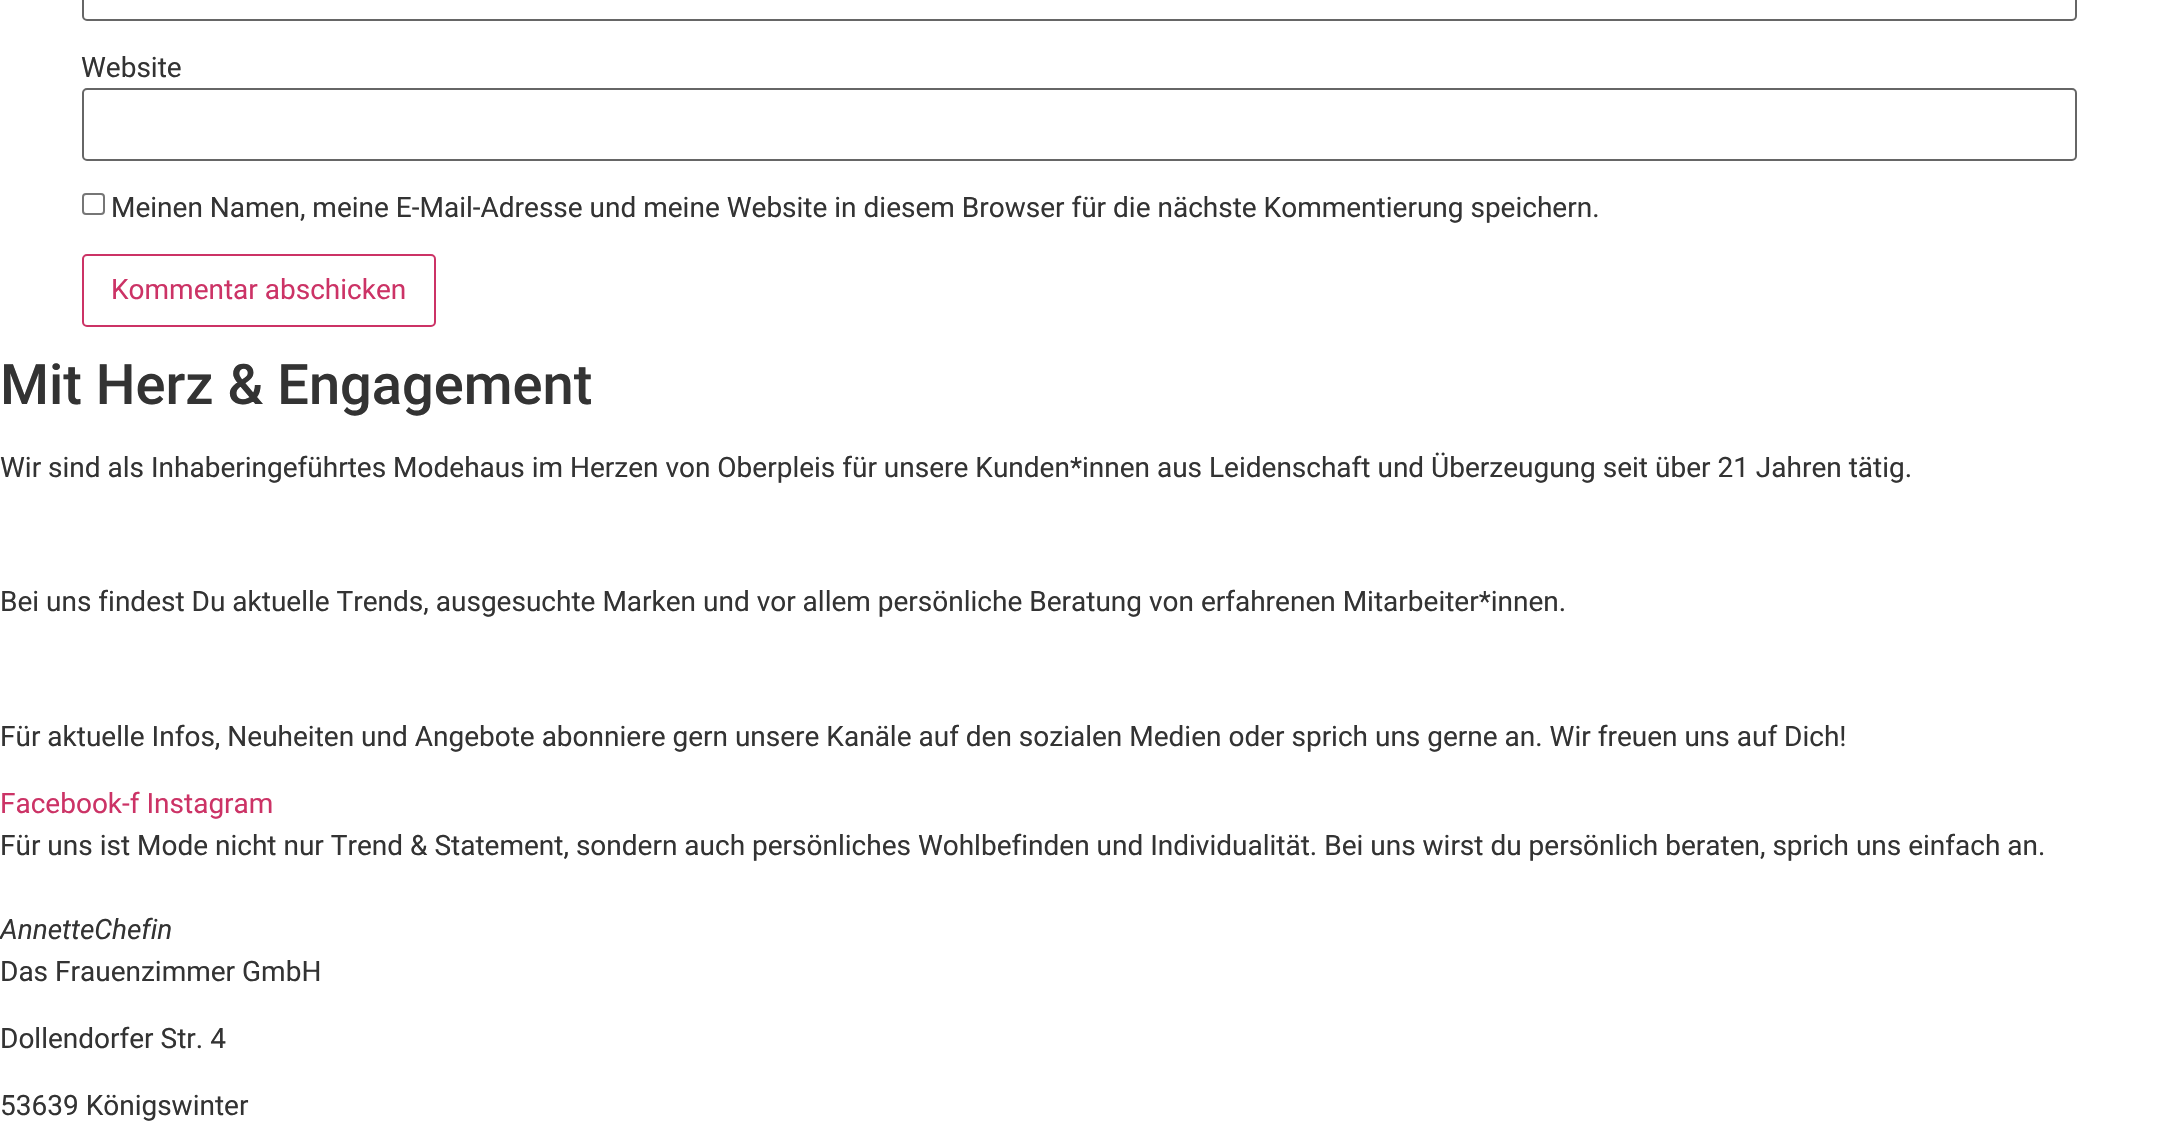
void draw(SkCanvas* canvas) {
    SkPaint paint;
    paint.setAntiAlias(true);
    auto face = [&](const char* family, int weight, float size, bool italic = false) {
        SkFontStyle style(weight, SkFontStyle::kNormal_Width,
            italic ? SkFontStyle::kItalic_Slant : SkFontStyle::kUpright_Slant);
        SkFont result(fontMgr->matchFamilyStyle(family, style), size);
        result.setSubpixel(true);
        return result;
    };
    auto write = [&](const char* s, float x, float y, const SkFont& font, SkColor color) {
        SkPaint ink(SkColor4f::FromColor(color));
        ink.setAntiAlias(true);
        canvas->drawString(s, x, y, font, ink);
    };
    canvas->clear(SK_ColorWHITE);
    paint.setStyle(SkPaint::kStroke_Style);
    paint.setStrokeWidth(2);
    paint.setColor(SkColorSetRGB(102, 102, 102));
    canvas->drawRoundRect(SkRect::MakeXYWH(83, -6, 1993, 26), 4, 4, paint);
    auto kFont1 = face("Roboto", 400, 28);
    write("Website", 81, 77, kFont1, SkColorSetRGB(51, 51, 51));
    canvas->drawRoundRect(SkRect::MakeXYWH(83, 89, 1993, 71), 4, 4, paint);
    paint.setColor(SkColorSetRGB(118, 118, 118));
    canvas->drawRoundRect(SkRect::MakeXYWH(83, 194, 21, 20), 3, 3, paint);
    write("Meinen Namen, meine E-Mail-Adresse und meine Website in diesem Browser für die nächste Kommentierung speichern.", 111, 217, kFont1, SkColorSetRGB(51, 51, 51));
    paint.setColor(SkColorSetRGB(204, 51, 102));
    canvas->drawRoundRect(SkRect::MakeXYWH(83, 255, 352, 71), 4, 4, paint);
    write("Kommentar abschicken", 111, 299, kFont1, SkColorSetRGB(204, 51, 102));
    auto kFont2 = face("Roboto", 500, 56);
    write("Mit Herz & Engagement", 0, 404, kFont2, SkColorSetRGB(51, 51, 51));
    write("Wir sind als Inhaberingeführtes Modehaus im Herzen von Oberpleis für unsere Kunden*innen aus Leidenschaft und Überzeugung seit über 21 Jahren tätig.", 0, 477, kFont1, SkColorSetRGB(51, 51, 51));
    write("Bei uns findest Du aktuelle Trends, ausgesuchte Marken und vor allem persönliche Beratung von erfahrenen Mitarbeiter*innen.", 0, 611, kFont1, SkColorSetRGB(51, 51, 51));
    write("Für aktuelle Infos, Neuheiten und Angebote abonniere gern unsere Kanäle auf den sozialen Medien oder sprich uns gerne an. Wir freuen uns auf Dich!", 0, 746, kFont1, SkColorSetRGB(51, 51, 51));
    write("Facebook-f Instagram", 0, 813, kFont1, SkColorSetRGB(204, 51, 102));
    write("Für uns ist Mode nicht nur Trend & Statement, sondern auch persönliches Wohlbefinden und Individualität. Bei uns wirst du persönlich beraten, sprich uns einfach an.", 0, 855, kFont1, SkColorSetRGB(51, 51, 51));
    auto kFont3 = face("Roboto", 400, 28, true);
    write("AnnetteChefin", 0, 939, kFont3, SkColorSetRGB(51, 51, 51));
    write("Das Frauenzimmer GmbH", 0, 981, kFont1, SkColorSetRGB(51, 51, 51));
    write("Dollendorfer Str. 4", 0, 1048, kFont1, SkColorSetRGB(51, 51, 51));
    write("53639 Königswinter", 0, 1115, kFont1, SkColorSetRGB(51, 51, 51));
}
